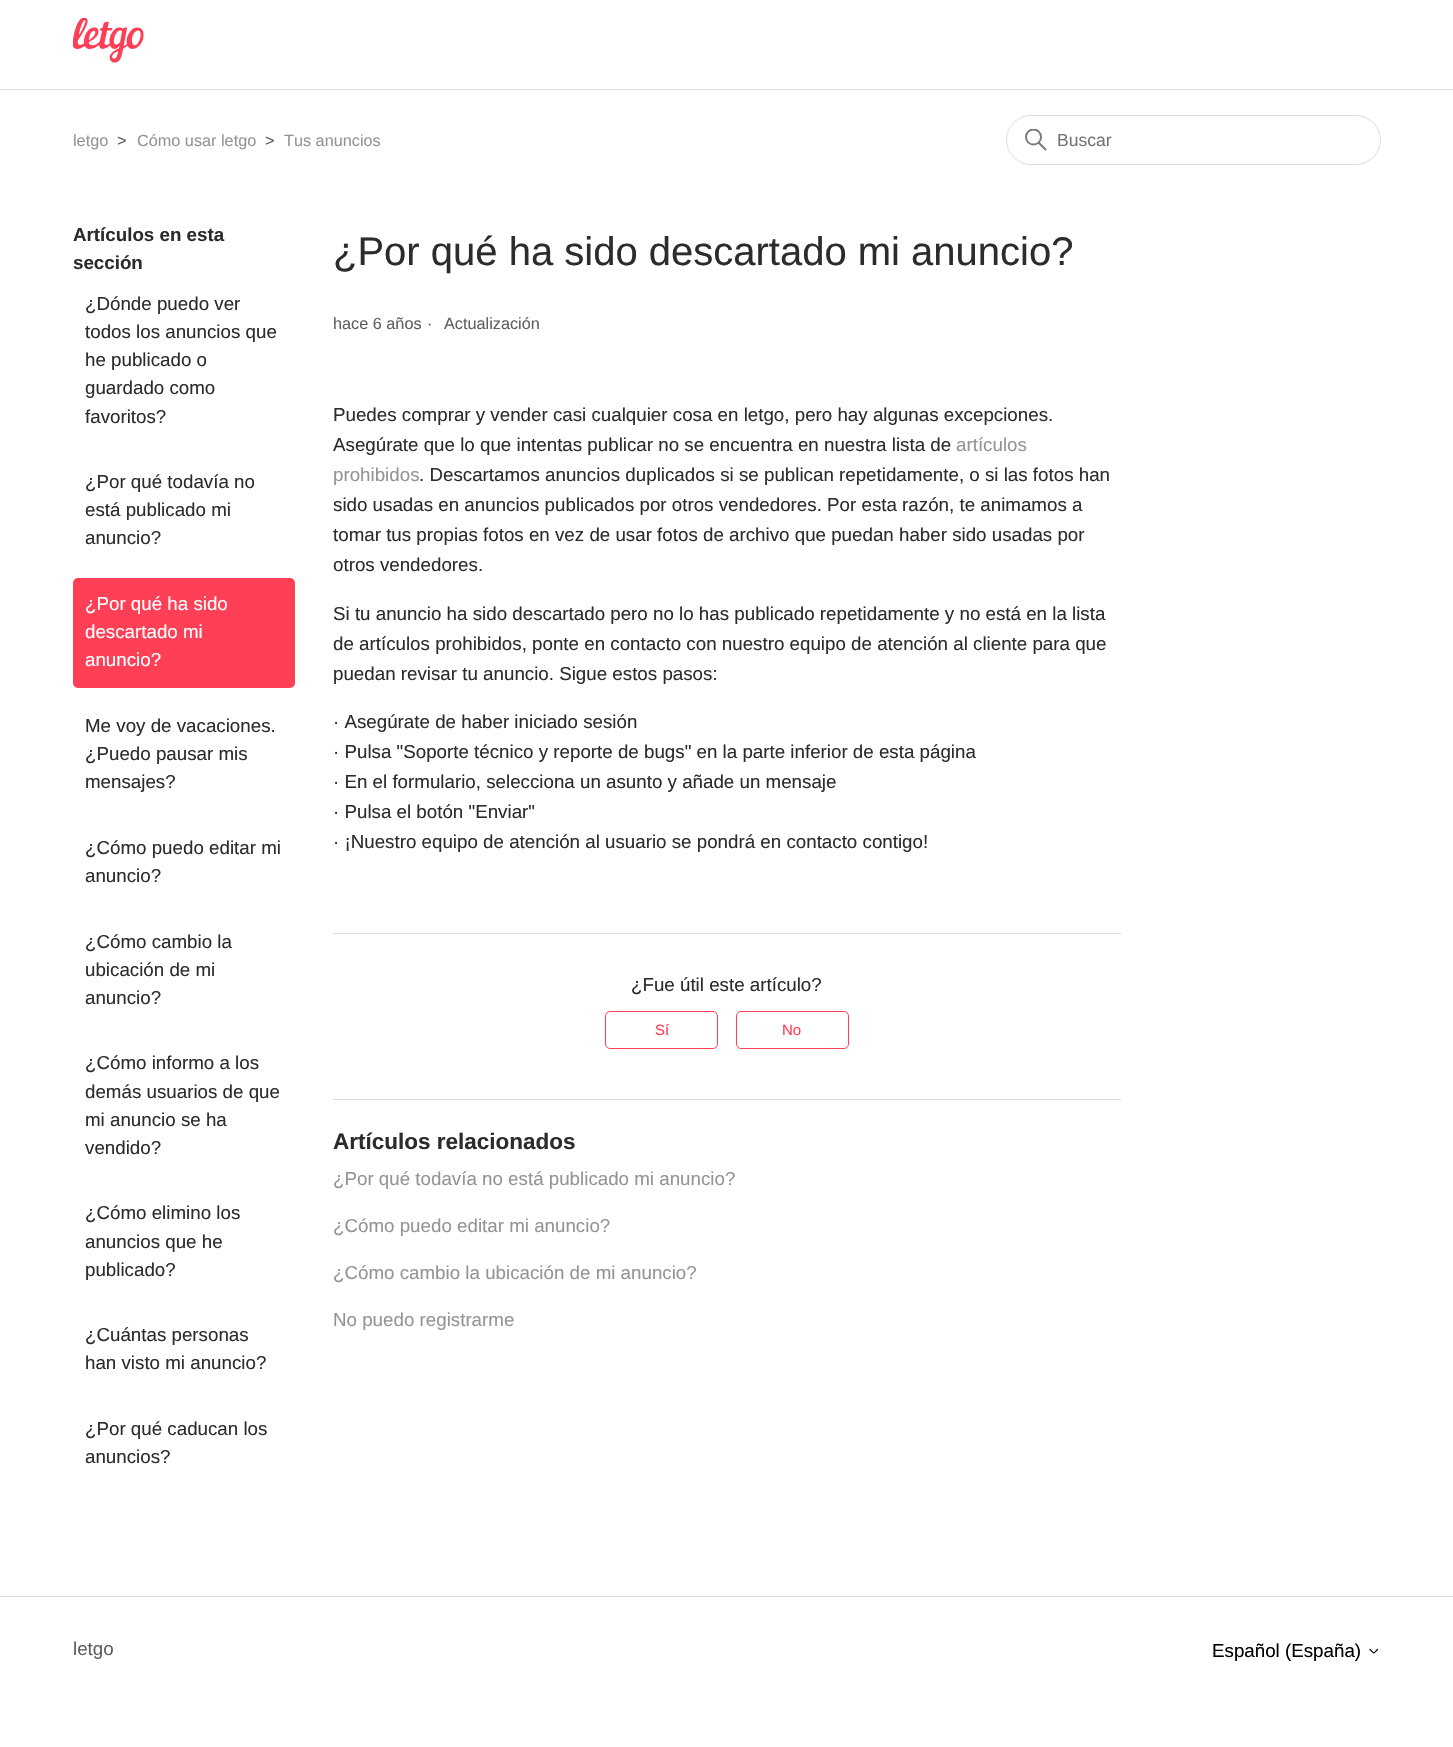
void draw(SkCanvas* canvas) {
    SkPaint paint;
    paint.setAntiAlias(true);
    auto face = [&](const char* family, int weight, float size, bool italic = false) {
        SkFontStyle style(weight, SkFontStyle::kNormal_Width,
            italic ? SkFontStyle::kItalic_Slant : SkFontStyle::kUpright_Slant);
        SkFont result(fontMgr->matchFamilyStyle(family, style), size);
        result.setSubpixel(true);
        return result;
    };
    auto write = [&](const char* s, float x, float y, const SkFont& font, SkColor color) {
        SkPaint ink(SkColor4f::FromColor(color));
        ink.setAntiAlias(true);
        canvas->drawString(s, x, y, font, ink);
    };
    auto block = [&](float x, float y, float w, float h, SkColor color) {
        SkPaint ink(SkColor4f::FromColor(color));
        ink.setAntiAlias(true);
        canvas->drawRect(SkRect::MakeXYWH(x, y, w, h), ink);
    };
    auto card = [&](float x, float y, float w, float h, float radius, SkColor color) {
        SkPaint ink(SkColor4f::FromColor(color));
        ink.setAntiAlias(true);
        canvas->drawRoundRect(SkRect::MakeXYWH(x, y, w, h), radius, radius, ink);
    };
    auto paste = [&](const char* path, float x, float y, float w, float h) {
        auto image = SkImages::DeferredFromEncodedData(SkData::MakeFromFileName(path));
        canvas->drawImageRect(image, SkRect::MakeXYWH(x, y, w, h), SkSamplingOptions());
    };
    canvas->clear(SK_ColorWHITE);
    paste("pic1.png", 73, 18, 71, 45);
    block(0, 89, 1453, 1, SkColorSetRGB(221, 221, 221));
    auto kFont1 = face("Liberation Sans", 400, 16.25f);
    write("letgo", 73, 146, kFont1, SkColorSetRGB(148, 148, 148));
    write(">", 117, 146, kFont1, SkColorSetRGB(95, 95, 95));
    write("Cómo usar letgo", 137, 146, kFont1, SkColorSetRGB(148, 148, 148));
    write(">", 265, 146, kFont1, SkColorSetRGB(95, 95, 95));
    write("Tus anuncios", 284, 146, kFont1, SkColorSetRGB(148, 148, 148));
    paint.setStyle(SkPaint::kStroke_Style);
    paint.setStrokeWidth(1);
    paint.setColor(SkColorSetRGB(221, 221, 221));
    canvas->drawRoundRect(SkRect::MakeXYWH(1006.5f, 115.5f, 374, 49), 24.5f, 24.5f, paint);
    canvas->save();
    canvas->clipRect(SkRect::MakeXYWH(1025, 129, 23, 22));
    paint.setStrokeWidth(1.9f);
    paint.setColor(SkColorSetRGB(119, 119, 119));
    canvas->drawCircle(1033.5f, 137, 7.5f, paint);
    canvas->restore();
    paint.setStrokeCap(SkPaint::kRound_Cap);
    canvas->drawPath(SkPathBuilder().moveTo(1045.5f, 149.5f).lineTo(1039, 143).detach(), paint);
    auto kFont2 = face("Liberation Sans", 400, 17.5f);
    write("Buscar", 1057, 146, kFont2, SkColorSetRGB(117, 117, 117));
    auto kFont3 = face("Liberation Sans", 700, 18.75f);
    write("Artículos en esta", 73, 241, kFont3, SkColorSetRGB(44, 44, 44));
    write("sección", 73, 269, kFont3, SkColorSetRGB(44, 44, 44));
    auto kFont4 = face("Liberation Sans", 400, 18.75f);
    write("¿Dónde puedo ver", 85, 310, kFont4, SkColorSetRGB(44, 44, 44));
    write("todos los anuncios que", 85, 338, kFont4, SkColorSetRGB(44, 44, 44));
    write("he publicado o", 85, 366, kFont4, SkColorSetRGB(44, 44, 44));
    write("guardado como", 85, 394, kFont4, SkColorSetRGB(44, 44, 44));
    write("favoritos?", 85, 423, kFont4, SkColorSetRGB(44, 44, 44));
    write("¿Por qué todavía no", 85, 488, kFont4, SkColorSetRGB(44, 44, 44));
    write("está publicado mi", 85, 516, kFont4, SkColorSetRGB(44, 44, 44));
    write("anuncio?", 85, 544, kFont4, SkColorSetRGB(44, 44, 44));
    card(73, 578, 222, 110, 5, SkColorSetRGB(255, 63, 85));
    write("¿Por qué ha sido", 85, 610, kFont4, SK_ColorWHITE);
    write("descartado mi", 85, 638, kFont4, SK_ColorWHITE);
    write("anuncio?", 85, 666, kFont4, SK_ColorWHITE);
    write("Me voy de vacaciones.", 85, 732, kFont4, SkColorSetRGB(44, 44, 44));
    write("¿Puedo pausar mis", 85, 760, kFont4, SkColorSetRGB(44, 44, 44));
    write("mensajes?", 85, 788, kFont4, SkColorSetRGB(44, 44, 44));
    write("¿Cómo puedo editar mi", 85, 854, kFont4, SkColorSetRGB(44, 44, 44));
    write("anuncio?", 85, 882, kFont4, SkColorSetRGB(44, 44, 44));
    write("¿Cómo cambio la", 85, 948, kFont4, SkColorSetRGB(44, 44, 44));
    write("ubicación de mi", 85, 976, kFont4, SkColorSetRGB(44, 44, 44));
    write("anuncio?", 85, 1004, kFont4, SkColorSetRGB(44, 44, 44));
    write("¿Cómo informo a los", 85, 1069, kFont4, SkColorSetRGB(44, 44, 44));
    write("demás usuarios de que", 85, 1098, kFont4, SkColorSetRGB(44, 44, 44));
    write("mi anuncio se ha", 85, 1126, kFont4, SkColorSetRGB(44, 44, 44));
    write("vendido?", 85, 1154, kFont4, SkColorSetRGB(44, 44, 44));
    write("¿Cómo elimino los", 85, 1219, kFont4, SkColorSetRGB(44, 44, 44));
    write("anuncios que he", 85, 1248, kFont4, SkColorSetRGB(44, 44, 44));
    write("publicado?", 85, 1276, kFont4, SkColorSetRGB(44, 44, 44));
    write("¿Cuántas personas", 85, 1341, kFont4, SkColorSetRGB(44, 44, 44));
    write("han visto mi anuncio?", 85, 1369, kFont4, SkColorSetRGB(44, 44, 44));
    write("¿Por qué caducan los", 85, 1435, kFont4, SkColorSetRGB(44, 44, 44));
    write("anuncios?", 85, 1463, kFont4, SkColorSetRGB(44, 44, 44));
    auto kFont5 = face("Liberation Sans", 400, 40);
    write("¿Por qué ha sido descartado mi anuncio?", 333, 265, kFont5, SkColorSetRGB(44, 44, 44));
    write("hace 6 años", 333, 329, kFont1, SkColorSetRGB(95, 95, 95));
    write("·", 427, 329, kFont1, SkColorSetRGB(95, 95, 95));
    write("Actualización", 444, 329, kFont1, SkColorSetRGB(95, 95, 95));
    write("Puedes comprar y vender casi cualquier cosa en letgo, pero hay algunas excepciones.", 333, 421, kFont4, SkColorSetRGB(44, 44, 44));
    write("Asegúrate que lo que intentas publicar no se encuentra en nuestra lista de", 333, 451, kFont4, SkColorSetRGB(44, 44, 44));
    write("artículos", 956, 451, kFont4, SkColorSetRGB(148, 148, 148));
    write("prohibidos", 333, 481, kFont4, SkColorSetRGB(148, 148, 148));
    write(". Descartamos anuncios duplicados si se publican repetidamente, o si las fotos han", 419, 481, kFont4, SkColorSetRGB(44, 44, 44));
    write("sido usadas en anuncios publicados por otros vendedores. Por esta razón, te animamos a", 333, 511, kFont4, SkColorSetRGB(44, 44, 44));
    write("tomar tus propias fotos en vez de usar fotos de archivo que puedan haber sido usadas por", 333, 541, kFont4, SkColorSetRGB(44, 44, 44));
    write("otros vendedores.", 333, 571, kFont4, SkColorSetRGB(44, 44, 44));
    write("Si tu anuncio ha sido descartado pero no lo has publicado repetidamente y no está en la lista", 333, 620, kFont4, SkColorSetRGB(44, 44, 44));
    write("de artículos prohibidos, ponte en contacto con nuestro equipo de atención al cliente para que", 333, 650, kFont4, SkColorSetRGB(44, 44, 44));
    write("puedan revisar tu anuncio. Sigue estos pasos:", 333, 680, kFont4, SkColorSetRGB(44, 44, 44));
    write("· Asegúrate de haber iniciado sesión", 333, 728, kFont4, SkColorSetRGB(44, 44, 44));
    write("· Pulsa \"Soporte técnico y reporte de bugs\" en la parte inferior de esta página", 333, 758, kFont4, SkColorSetRGB(44, 44, 44));
    write("· En el formulario, selecciona un asunto y añade un mensaje", 333, 788, kFont4, SkColorSetRGB(44, 44, 44));
    write("· Pulsa el botón \"Enviar\"", 333, 818, kFont4, SkColorSetRGB(44, 44, 44));
    write("· ¡Nuestro equipo de atención al usuario se pondrá en contacto contigo!", 333, 848, kFont4, SkColorSetRGB(44, 44, 44));
    block(333, 933, 788, 1, SkColorSetRGB(221, 221, 221));
    write("¿Fue útil este artículo?", 631, 991, kFont4, SkColorSetRGB(44, 44, 44));
    paint.setStrokeWidth(1);
    paint.setStrokeCap(SkPaint::kButt_Cap);
    paint.setColor(SkColorSetRGB(255, 63, 85));
    canvas->drawRoundRect(SkRect::MakeXYWH(605.5f, 1011.5f, 112, 37), 4.5f, 4.5f, paint);
    auto kFont6 = face("Liberation Sans", 400, 15);
    write("Sí", 655, 1035, kFont6, SkColorSetRGB(255, 63, 85));
    canvas->drawRoundRect(SkRect::MakeXYWH(736.5f, 1011.5f, 112, 37), 4.5f, 4.5f, paint);
    write("No", 782, 1035, kFont6, SkColorSetRGB(255, 63, 85));
    block(333, 1099, 788, 1, SkColorSetRGB(221, 221, 221));
    auto kFont7 = face("Liberation Sans", 700, 22.5f);
    write("Artículos relacionados", 333, 1149, kFont7, SkColorSetRGB(44, 44, 44));
    write("¿Por qué todavía no está publicado mi anuncio?", 333, 1185, kFont4, SkColorSetRGB(148, 148, 148));
    write("¿Cómo puedo editar mi anuncio?", 333, 1232, kFont4, SkColorSetRGB(148, 148, 148));
    write("¿Cómo cambio la ubicación de mi anuncio?", 333, 1279, kFont4, SkColorSetRGB(148, 148, 148));
    write("No puedo registrarme", 333, 1326, kFont4, SkColorSetRGB(148, 148, 148));
    block(0, 1596, 1453, 1, SkColorSetRGB(221, 221, 221));
    write("letgo", 73, 1655, kFont4, SkColorSetRGB(95, 95, 95));
    write("Español (España)", 1212, 1657, kFont4, SK_ColorBLACK);
    paint.setStrokeWidth(1.2f);
    paint.setStrokeCap(SkPaint::kRound_Cap);
    paint.setColor(SK_ColorBLACK);
    canvas->drawPath(SkPathBuilder().moveTo(1370, 1649.5f).cubicTo(1374.5f, 1654, 1373, 1654, 1377.5f, 1649.5f).detach(), paint);
}
